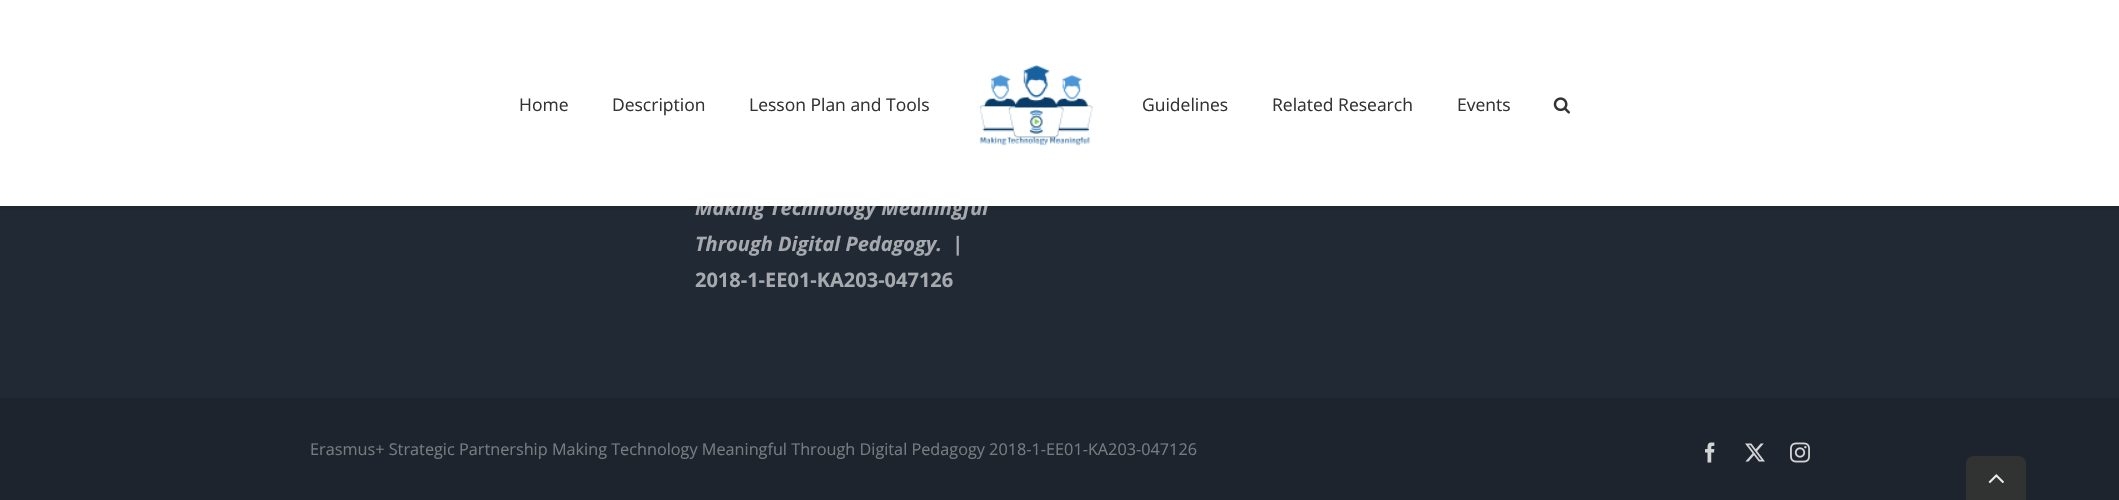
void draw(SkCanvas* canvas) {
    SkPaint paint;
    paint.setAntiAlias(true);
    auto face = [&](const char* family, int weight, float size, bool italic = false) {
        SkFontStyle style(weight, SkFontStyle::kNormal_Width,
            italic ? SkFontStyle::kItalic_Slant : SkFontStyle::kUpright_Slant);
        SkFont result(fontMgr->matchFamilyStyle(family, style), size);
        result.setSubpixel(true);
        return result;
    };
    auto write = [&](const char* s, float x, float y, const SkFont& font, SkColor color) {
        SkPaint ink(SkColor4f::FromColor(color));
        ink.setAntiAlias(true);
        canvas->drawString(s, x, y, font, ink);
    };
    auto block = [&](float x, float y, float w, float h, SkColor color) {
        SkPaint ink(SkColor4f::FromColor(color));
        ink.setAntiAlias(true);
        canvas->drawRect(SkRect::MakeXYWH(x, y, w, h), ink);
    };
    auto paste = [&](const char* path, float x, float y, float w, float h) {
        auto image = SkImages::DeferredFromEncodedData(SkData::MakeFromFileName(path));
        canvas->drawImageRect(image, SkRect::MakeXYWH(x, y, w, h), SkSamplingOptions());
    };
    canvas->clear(SkColorSetRGB(33, 41, 52));
    paint.setColor(SkColorSetARGB(31, 0, 0, 0));
    paint.setMaskFilter(SkMaskFilter::MakeBlur(kNormal_SkBlurStyle, 2));
    canvas->drawRect(SkRect::MakeXYWH(0, 1, 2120, 207), paint);
    paint.setMaskFilter(nullptr);
    auto kFont1 = face("Open Sans", 700, 20, true);
    write("Making Technology Meaningful", 695, 215, kFont1, SkColorSetRGB(166, 169, 174));
    block(0, 0, 2119, 206, SK_ColorWHITE);
    auto kFont2 = face("Open Sans", 400, 17.5f);
    write("Home", 519, 111, kFont2, SkColorSetRGB(51, 51, 51));
    write("Description", 612, 111, kFont2, SkColorSetRGB(51, 51, 51));
    write("Lesson Plan and Tools", 749, 111, kFont2, SkColorSetRGB(51, 51, 51));
    paste("pic1.png", 979, 65, 114, 81);
    write("Guidelines", 1142, 111, kFont2, SkColorSetRGB(51, 51, 51));
    write("Related Research", 1272, 111, kFont2, SkColorSetRGB(51, 51, 51));
    write("Events", 1457, 111, kFont2, SkColorSetRGB(51, 51, 51));
    paste("pic2.png", 1553, 97, 17, 17);
    write("Through Digital Pedagogy.  |", 695, 251, kFont1, SkColorSetRGB(166, 169, 174));
    auto kFont3 = face("Open Sans", 700, 20);
    write("2018-1-EE01-KA203-047126", 695, 287, kFont3, SkColorSetRGB(166, 169, 174));
    block(0, 398, 2119, 102, SkColorSetRGB(29, 36, 45));
    auto kFont4 = face("Open Sans", 400, 16.25f);
    write("Erasmus+ Strategic Partnership Making Technology Meaningful Through Digital Pedagogy 2018-1-EE01-KA203-047126", 310, 455, kFont4, SkColorSetRGB(119, 124, 129));
    paste("pic3.png", 1705, 442, 10, 21);
    paste("pic4.png", 1745, 443, 20, 19);
    paste("pic5.png", 1790, 442, 20, 21);
    paint.setColor(SkColorSetRGB(49, 50, 50));
    canvas->drawPath(SkPathBuilder().moveTo(1974, 456).lineTo(2018, 456).cubicTo(2022.5f, 456, 2026, 459.5f, 2026, 464).lineTo(2026, 500).lineTo(1966, 500).lineTo(1966, 464).cubicTo(1966, 459.5f, 1969.5f, 456, 1974, 456).close().detach(), paint);
    paste("pic6.png", 1988, 474, 16, 10);
}
